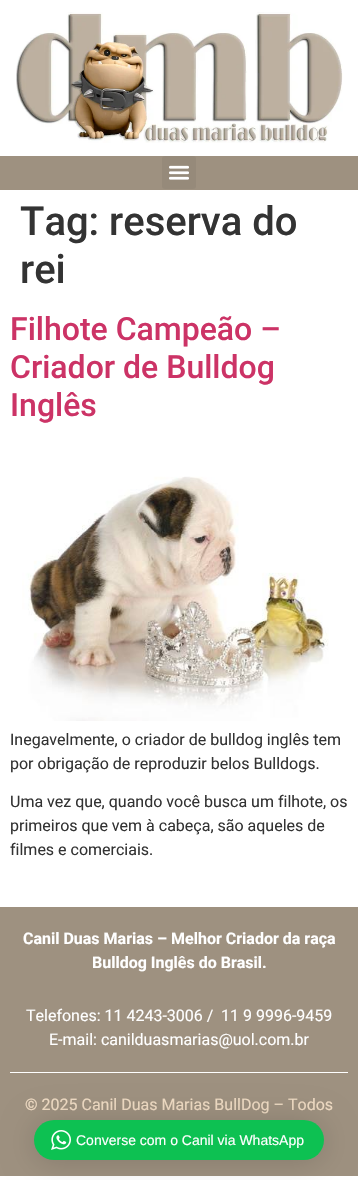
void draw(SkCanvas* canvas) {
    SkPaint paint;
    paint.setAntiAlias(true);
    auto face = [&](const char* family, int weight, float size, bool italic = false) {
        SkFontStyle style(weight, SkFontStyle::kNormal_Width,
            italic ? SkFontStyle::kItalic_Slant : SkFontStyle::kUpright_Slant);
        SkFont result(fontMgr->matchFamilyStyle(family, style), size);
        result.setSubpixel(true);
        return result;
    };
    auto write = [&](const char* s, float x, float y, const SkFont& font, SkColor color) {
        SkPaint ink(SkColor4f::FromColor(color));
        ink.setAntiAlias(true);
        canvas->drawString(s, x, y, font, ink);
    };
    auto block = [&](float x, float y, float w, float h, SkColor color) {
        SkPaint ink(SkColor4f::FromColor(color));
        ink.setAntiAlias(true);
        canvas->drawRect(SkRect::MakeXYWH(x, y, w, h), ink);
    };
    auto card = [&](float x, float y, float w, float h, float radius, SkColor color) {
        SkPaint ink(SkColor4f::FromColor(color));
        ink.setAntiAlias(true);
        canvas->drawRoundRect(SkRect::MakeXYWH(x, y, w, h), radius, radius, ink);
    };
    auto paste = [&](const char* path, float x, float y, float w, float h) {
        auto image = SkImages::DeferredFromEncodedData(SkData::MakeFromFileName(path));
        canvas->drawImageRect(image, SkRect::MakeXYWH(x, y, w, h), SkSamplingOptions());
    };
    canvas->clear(SK_ColorWHITE);
    paste("pic1.png", 16, 12, 327, 131);
    block(0, 156, 358, 34, SkColorSetRGB(158, 145, 128));
    card(162, 156, 34, 33, 3, SkColorSetRGB(150, 138, 122));
    paste("pic2.png", 169, 165, 20, 15);
    auto kFont1 = face("Roboto", 500, 40);
    write("Tag: reserva do", 20, 235, kFont1, SkColorSetRGB(51, 51, 51));
    write("rei", 20, 283, kFont1, SkColorSetRGB(51, 51, 51));
    auto kFont2 = face("Roboto", 500, 32);
    write("Filhote Campeão –", 10, 340, kFont2, SkColorSetRGB(204, 51, 102));
    write("Criador de Bulldog", 10, 378, kFont2, SkColorSetRGB(204, 51, 102));
    write("Inglês", 10, 416, kFont2, SkColorSetRGB(204, 51, 102));
    paste("pic3.png", 22, 476, 307, 245);
    auto kFont3 = face("Roboto", 400, 16);
    write("Inegavelmente, o criador de bulldog inglês tem", 10, 745, kFont3, SkColorSetRGB(51, 51, 51));
    write("por obrigação de reproduzir belos Bulldogs.", 10, 769, kFont3, SkColorSetRGB(51, 51, 51));
    write("Uma vez que, quando você busca um filhote, os", 10, 807, kFont3, SkColorSetRGB(51, 51, 51));
    write("primeiros que vem à cabeça, são aqueles de", 10, 831, kFont3, SkColorSetRGB(51, 51, 51));
    write("filmes e comerciais.", 10, 855, kFont3, SkColorSetRGB(51, 51, 51));
    block(0, 907, 358, 269, SkColorSetRGB(158, 145, 128));
    auto kFont4 = face("Roboto", 700, 16);
    write("Canil Duas Marias – Melhor Criador da raça", 23, 944, kFont4, SK_ColorWHITE);
    write("Bulldog Inglês do Brasil.", 92, 968, kFont4, SK_ColorWHITE);
    write("Telefones: 11 4243-3006 /", 26, 1021, kFont3, SK_ColorWHITE);
    write("11 9 9996-9459", 221, 1021, kFont3, SK_ColorWHITE);
    write("E-mail: canilduasmarias@uol.com.br", 49, 1045, kFont3, SK_ColorWHITE);
    block(10, 1072, 338, 1, SK_ColorWHITE);
    write("© 2025 Canil Duas Marias BullDog – Todos", 25, 1110, kFont3, SkColorSetRGB(239, 219, 195));
    paint.setColor(SkColorSetARGB(41, 0, 0, 0));
    paint.setMaskFilter(SkMaskFilter::MakeBlur(kNormal_SkBlurStyle, 16));
    canvas->drawRoundRect(SkRect::MakeXYWH(34, 1122, 290, 40), 20, 20, paint);
    paint.setMaskFilter(nullptr);
    card(34, 1120, 290, 40, 20, SkColorSetRGB(13, 193, 82));
    paste("pic4.png", 51, 1130, 20, 20);
    auto kFont5 = face("Liberation Sans", 400, 14);
    write("Converse com o Canil via WhatsApp", 76, 1145, kFont5, SK_ColorWHITE);
}
